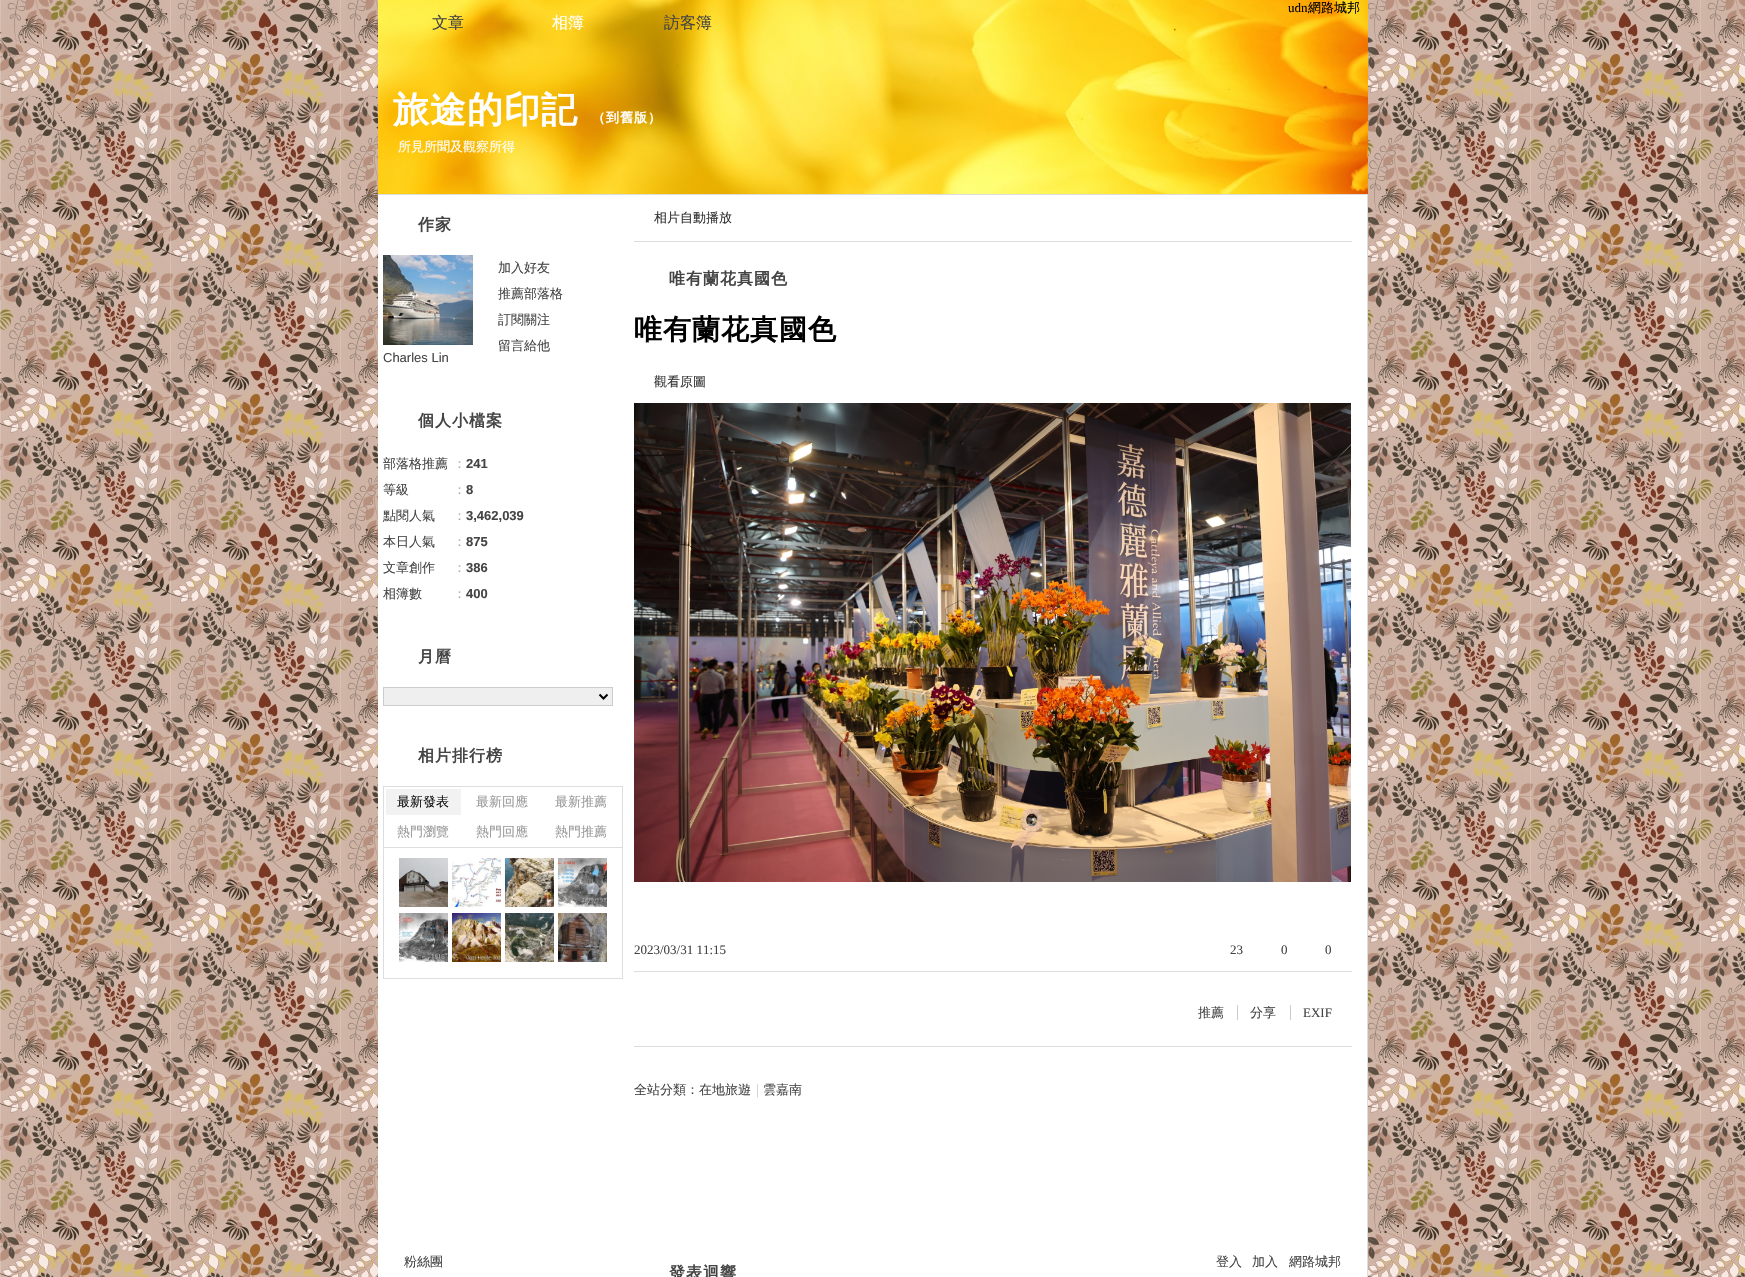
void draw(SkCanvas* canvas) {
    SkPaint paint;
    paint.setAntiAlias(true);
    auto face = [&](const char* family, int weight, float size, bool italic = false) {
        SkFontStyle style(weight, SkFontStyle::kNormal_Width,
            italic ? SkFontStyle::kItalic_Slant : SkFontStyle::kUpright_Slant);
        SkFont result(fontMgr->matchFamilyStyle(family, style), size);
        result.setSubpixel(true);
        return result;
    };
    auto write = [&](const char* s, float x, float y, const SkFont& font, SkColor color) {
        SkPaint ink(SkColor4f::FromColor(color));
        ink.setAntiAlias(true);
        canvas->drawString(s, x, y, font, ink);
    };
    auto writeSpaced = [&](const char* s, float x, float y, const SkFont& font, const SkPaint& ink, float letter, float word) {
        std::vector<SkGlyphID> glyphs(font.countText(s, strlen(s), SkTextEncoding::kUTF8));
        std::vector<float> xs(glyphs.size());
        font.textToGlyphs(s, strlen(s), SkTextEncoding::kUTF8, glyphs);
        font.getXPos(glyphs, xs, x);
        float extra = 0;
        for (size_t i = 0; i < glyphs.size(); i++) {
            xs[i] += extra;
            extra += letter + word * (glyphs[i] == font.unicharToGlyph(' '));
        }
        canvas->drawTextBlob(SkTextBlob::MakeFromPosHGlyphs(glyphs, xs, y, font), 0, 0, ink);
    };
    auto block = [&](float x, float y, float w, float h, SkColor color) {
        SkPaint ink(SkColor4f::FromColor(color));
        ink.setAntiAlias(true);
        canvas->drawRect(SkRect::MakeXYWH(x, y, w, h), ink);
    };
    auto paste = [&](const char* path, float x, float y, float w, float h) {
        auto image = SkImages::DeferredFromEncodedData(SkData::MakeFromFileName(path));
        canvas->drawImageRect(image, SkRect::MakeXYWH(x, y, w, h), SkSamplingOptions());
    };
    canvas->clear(SK_ColorWHITE);
    paste("pic1.png", 0, 0, 1745, 1277);
    paste("pic2.png", 378, 0, 990, 194);
    auto kFont1 = face("Liberation Serif", 400, 13);
    write("udn", 1288, 12, kFont1, SK_ColorBLACK);
    auto kFont2 = face("WenQuanYi Zen Hei", 500, 13);
    write("網路城邦", 1308, 12, kFont2, SK_ColorBLACK);
    auto kFont3 = face("WenQuanYi Zen Hei", 500, 16);
    write("文章", 432, 28, kFont3, SkColorSetRGB(68, 68, 68));
    write("相簿", 552, 28, kFont3, SK_ColorWHITE);
    write("訪客簿", 664, 28, kFont3, SkColorSetRGB(68, 68, 68));
    block(378, 194, 990, 1, SkColorSetRGB(221, 221, 221));
    auto kFont4 = face("WenQuanYi Zen Hei", 700, 36);
    paint.setColor(SK_ColorWHITE);
    writeSpaced("旅途的印記", 393, 122, kFont4, paint, 1, 0);
    auto kFont5 = face("WenQuanYi Zen Hei", 700, 13);
    writeSpaced("（到舊版）", 592, 122, kFont5, paint, 1, 0);
    write("所見所聞及觀察所得", 398, 151, kFont2, SK_ColorWHITE);
    block(378, 195, 989, 1082, SK_ColorWHITE);
    auto kFont6 = face("WenQuanYi Zen Hei", 700, 16);
    paint.setColor(SkColorSetRGB(68, 68, 68));
    writeSpaced("作家", 418, 230, kFont6, paint, 1, 0);
    write("加入好友", 498, 272, kFont2, SkColorSetRGB(68, 68, 68));
    write("推薦部落格", 498, 298, kFont2, SkColorSetRGB(68, 68, 68));
    write("訂閱關注", 498, 324, kFont2, SkColorSetRGB(68, 68, 68));
    write("留言給他", 498, 350, kFont2, SkColorSetRGB(68, 68, 68));
    paste("pic3.png", 383, 255, 90, 90);
    auto kFont7 = face("Liberation Sans", 400, 13);
    write("Charles Lin", 383, 362, kFont7, SkColorSetRGB(68, 68, 68));
    writeSpaced("個人小檔案", 418, 426, kFont6, paint, 1, 0);
    write("部落格推薦", 383, 468, kFont2, SkColorSetRGB(68, 68, 68));
    write("：", 453, 468, kFont2, SkColorSetRGB(170, 170, 170));
    auto kFont8 = face("Liberation Sans", 700, 13);
    write("241", 466, 468, kFont8, SkColorSetRGB(68, 68, 68));
    write("等級", 383, 494, kFont2, SkColorSetRGB(68, 68, 68));
    write("：", 453, 494, kFont2, SkColorSetRGB(170, 170, 170));
    write("8", 466, 494, kFont8, SkColorSetRGB(68, 68, 68));
    write("點閱人氣", 383, 520, kFont2, SkColorSetRGB(68, 68, 68));
    write("：", 453, 520, kFont2, SkColorSetRGB(170, 170, 170));
    write("3,462,039", 466, 520, kFont8, SkColorSetRGB(68, 68, 68));
    write("本日人氣", 383, 546, kFont2, SkColorSetRGB(68, 68, 68));
    write("：", 453, 546, kFont2, SkColorSetRGB(170, 170, 170));
    write("875", 466, 546, kFont8, SkColorSetRGB(68, 68, 68));
    write("文章創作", 383, 572, kFont2, SkColorSetRGB(68, 68, 68));
    write("：", 453, 572, kFont2, SkColorSetRGB(170, 170, 170));
    write("386", 466, 572, kFont8, SkColorSetRGB(68, 68, 68));
    write("相簿數", 383, 598, kFont2, SkColorSetRGB(68, 68, 68));
    write("：", 453, 598, kFont2, SkColorSetRGB(170, 170, 170));
    write("400", 466, 598, kFont8, SkColorSetRGB(68, 68, 68));
    writeSpaced("月曆", 418, 662, kFont6, paint, 1, 0);
    paint.setColor(SkColorSetRGB(239, 239, 239));
    canvas->drawRect(SkRect::MakeXYWH(383.5f, 687.5f, 229, 18), paint);
    paint.setStyle(SkPaint::kStroke_Style);
    paint.setStrokeWidth(1);
    paint.setColor(SkColorSetRGB(204, 204, 204));
    canvas->drawRect(SkRect::MakeXYWH(383.5f, 687.5f, 229, 18), paint);
    paint.setStrokeWidth(2);
    paint.setColor(SK_ColorBLACK);
    canvas->drawPath(SkPathBuilder().moveTo(599.5f, 694.5f).lineTo(603.5f, 698.5f).lineTo(607.5f, 694.5f).detach(), paint);
    paint.setStyle(SkPaint::kFill_Style);
    paint.setColor(SkColorSetRGB(68, 68, 68));
    writeSpaced("相片排行榜", 418, 761, kFont6, paint, 1, 0);
    paint.setStyle(SkPaint::kStroke_Style);
    paint.setStrokeWidth(1);
    paint.setColor(SkColorSetRGB(221, 221, 221));
    canvas->drawRect(SkRect::MakeXYWH(383.5f, 786.5f, 239, 61), paint);
    block(386, 789, 75, 26, SkColorSetRGB(242, 242, 242));
    write("最新發表", 397, 806, kFont2, SkColorSetRGB(17, 17, 17));
    write("最新回應", 476, 806, kFont2, SkColorSetRGB(153, 153, 153));
    write("最新推薦", 555, 806, kFont2, SkColorSetRGB(153, 153, 153));
    write("熱門瀏覽", 397, 836, kFont2, SkColorSetRGB(153, 153, 153));
    write("熱門回應", 476, 836, kFont2, SkColorSetRGB(153, 153, 153));
    write("熱門推薦", 555, 836, kFont2, SkColorSetRGB(153, 153, 153));
    block(622, 848, 1, 131, SkColorSetRGB(221, 221, 221));
    block(383, 978, 240, 1, SkColorSetRGB(221, 221, 221));
    block(383, 848, 1, 131, SkColorSetRGB(221, 221, 221));
    paste("pic4.png", 399, 858, 49, 49);
    paste("pic5.png", 452, 858, 49, 49);
    paste("pic6.png", 505, 858, 49, 49);
    paste("pic7.png", 558, 858, 49, 49);
    paste("pic8.png", 399, 913, 49, 49);
    paste("pic9.png", 452, 913, 49, 49);
    paste("pic10.png", 505, 913, 49, 49);
    paste("pic11.png", 558, 913, 49, 49);
    block(1367, 195, 1, 1082, SkColorSetRGB(221, 221, 221));
    block(634, 241, 718, 1, SkColorSetRGB(221, 221, 221));
    write("相片自動播放", 654, 222, kFont2, SkColorSetRGB(51, 51, 51));
    paint.setStyle(SkPaint::kFill_Style);
    paint.setColor(SkColorSetRGB(68, 68, 68));
    writeSpaced("唯有蘭花真國色", 669, 284, kFont6, paint, 1, 0);
    auto kFont9 = face("WenQuanYi Zen Hei", 700, 28);
    paint.setColor(SK_ColorBLACK);
    writeSpaced("唯有蘭花真國色", 634, 339, kFont9, paint, 1, 0);
    write("觀看原圖", 654, 386, kFont2, SkColorSetRGB(51, 51, 51));
    paste("pic12.png", 634, 403, 717, 479);
    write("2023/03/31 11:15", 634, 954, kFont1, SkColorSetRGB(68, 68, 68));
    write("23", 1230, 954, kFont1, SkColorSetRGB(68, 68, 68));
    write("0", 1281, 954, kFont1, SkColorSetRGB(68, 68, 68));
    write("0", 1325, 954, kFont1, SkColorSetRGB(68, 68, 68));
    block(634, 971, 718, 1, SkColorSetRGB(221, 221, 221));
    write("推薦", 1198, 1017, kFont2, SkColorSetRGB(68, 68, 68));
    block(1237, 1005, 1, 15, SkColorSetRGB(204, 204, 204));
    write("分享", 1250, 1017, kFont2, SkColorSetRGB(68, 68, 68));
    block(1290, 1005, 1, 15, SkColorSetRGB(204, 204, 204));
    write("EXIF", 1303, 1017, kFont1, SkColorSetRGB(68, 68, 68));
    block(634, 1046, 718, 1, SkColorSetRGB(221, 221, 221));
    write("全站分類：在地旅遊", 634, 1094, kFont2, SkColorSetRGB(68, 68, 68));
    write("｜", 751, 1094, kFont2, SkColorSetRGB(204, 204, 204));
    write("雲嘉南", 763, 1094, kFont2, SkColorSetRGB(68, 68, 68));
    paint.setColor(SkColorSetRGB(68, 68, 68));
    writeSpaced("發表迴響", 669, 1278, kFont6, paint, 1, 0);
    write("粉絲團", 404, 1266, kFont2, SkColorSetRGB(68, 68, 68));
    write("登入", 1216, 1266, kFont2, SkColorSetRGB(68, 68, 68));
    write("加入", 1252, 1266, kFont2, SkColorSetRGB(68, 68, 68));
    write("網路城邦", 1289, 1266, kFont2, SkColorSetRGB(68, 68, 68));
}
